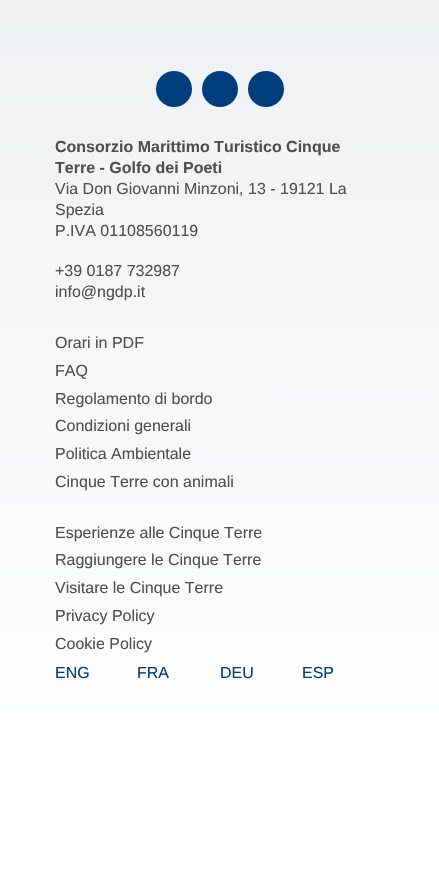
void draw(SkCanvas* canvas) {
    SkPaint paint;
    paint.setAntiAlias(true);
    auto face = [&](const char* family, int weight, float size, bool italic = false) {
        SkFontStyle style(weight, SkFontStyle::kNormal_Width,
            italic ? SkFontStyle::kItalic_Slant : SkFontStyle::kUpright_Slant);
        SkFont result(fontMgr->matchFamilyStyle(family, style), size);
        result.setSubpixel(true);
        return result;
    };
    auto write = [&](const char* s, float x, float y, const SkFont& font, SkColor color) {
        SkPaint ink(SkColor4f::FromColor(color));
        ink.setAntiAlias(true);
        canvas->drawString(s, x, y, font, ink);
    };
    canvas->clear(SK_ColorWHITE);
    {
        const SkColor colors[] = {SkColorSetRGB(236, 239, 241), SK_ColorWHITE, SkColorSetRGB(252, 252, 252)};
        const float stops[] = {0, 0.9f, 1};
        const SkPoint ends[] = {{219, -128}, {220, 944}};
        paint.setShader(SkGradientShader::MakeLinear(ends, colors, stops, 3, SkTileMode::kClamp));
        paint.setAlpha(255);
    }
    canvas->drawRect(SkRect::MakeXYWH(0, 0, 439, 710), paint);
    paint.setShader(nullptr);
    paint.setColor(SkColorSetRGB(0, 61, 124));
    canvas->drawCircle(174, 89, 18, paint);
    canvas->drawCircle(220, 89, 18, paint);
    canvas->drawCircle(266, 89, 18, paint);
    auto kFont1 = face("Liberation Sans", 700, 16);
    write("Consorzio Marittimo Turistico Cinque", 55, 152, kFont1, SkColorSetRGB(79, 79, 79));
    write("Terre - Golfo dei Poeti", 55, 173, kFont1, SkColorSetRGB(79, 79, 79));
    auto kFont2 = face("Liberation Sans", 400, 16);
    write("Via Don Giovanni Minzoni, 13 - 19121 La", 55, 194, kFont2, SkColorSetRGB(79, 79, 79));
    write("Spezia", 55, 215, kFont2, SkColorSetRGB(79, 79, 79));
    write("P.IVA 01108560119", 55, 236, kFont2, SkColorSetRGB(79, 79, 79));
    write("+39 0187 732987", 55, 276, kFont2, SkColorSetRGB(79, 79, 79));
    write("info@ngdp.it", 55, 297, kFont2, SkColorSetRGB(79, 79, 79));
    write("Orari in PDF", 55, 348, kFont2, SkColorSetRGB(79, 79, 79));
    write("FAQ", 55, 376, kFont2, SkColorSetRGB(79, 79, 79));
    write("Regolamento di bordo", 55, 404, kFont2, SkColorSetRGB(79, 79, 79));
    write("Condizioni generali", 55, 431, kFont2, SkColorSetRGB(79, 79, 79));
    write("Politica Ambientale", 55, 459, kFont2, SkColorSetRGB(79, 79, 79));
    write("Cinque Terre con animali", 55, 487, kFont2, SkColorSetRGB(79, 79, 79));
    write("Esperienze alle Cinque Terre", 55, 538, kFont2, SkColorSetRGB(79, 79, 79));
    write("Raggiungere le Cinque Terre", 55, 565, kFont2, SkColorSetRGB(79, 79, 79));
    write("Visitare le Cinque Terre", 55, 593, kFont2, SkColorSetRGB(79, 79, 79));
    write("Privacy Policy", 55, 621, kFont2, SkColorSetRGB(79, 79, 79));
    write("Cookie Policy", 55, 649, kFont2, SkColorSetRGB(79, 79, 79));
    write("ENG", 55, 678, kFont2, SkColorSetRGB(0, 61, 124));
    write("FRA", 137, 678, kFont2, SkColorSetRGB(0, 61, 124));
    write("DEU", 220, 678, kFont2, SkColorSetRGB(0, 61, 124));
    write("ESP", 302, 678, kFont2, SkColorSetRGB(0, 61, 124));
}
